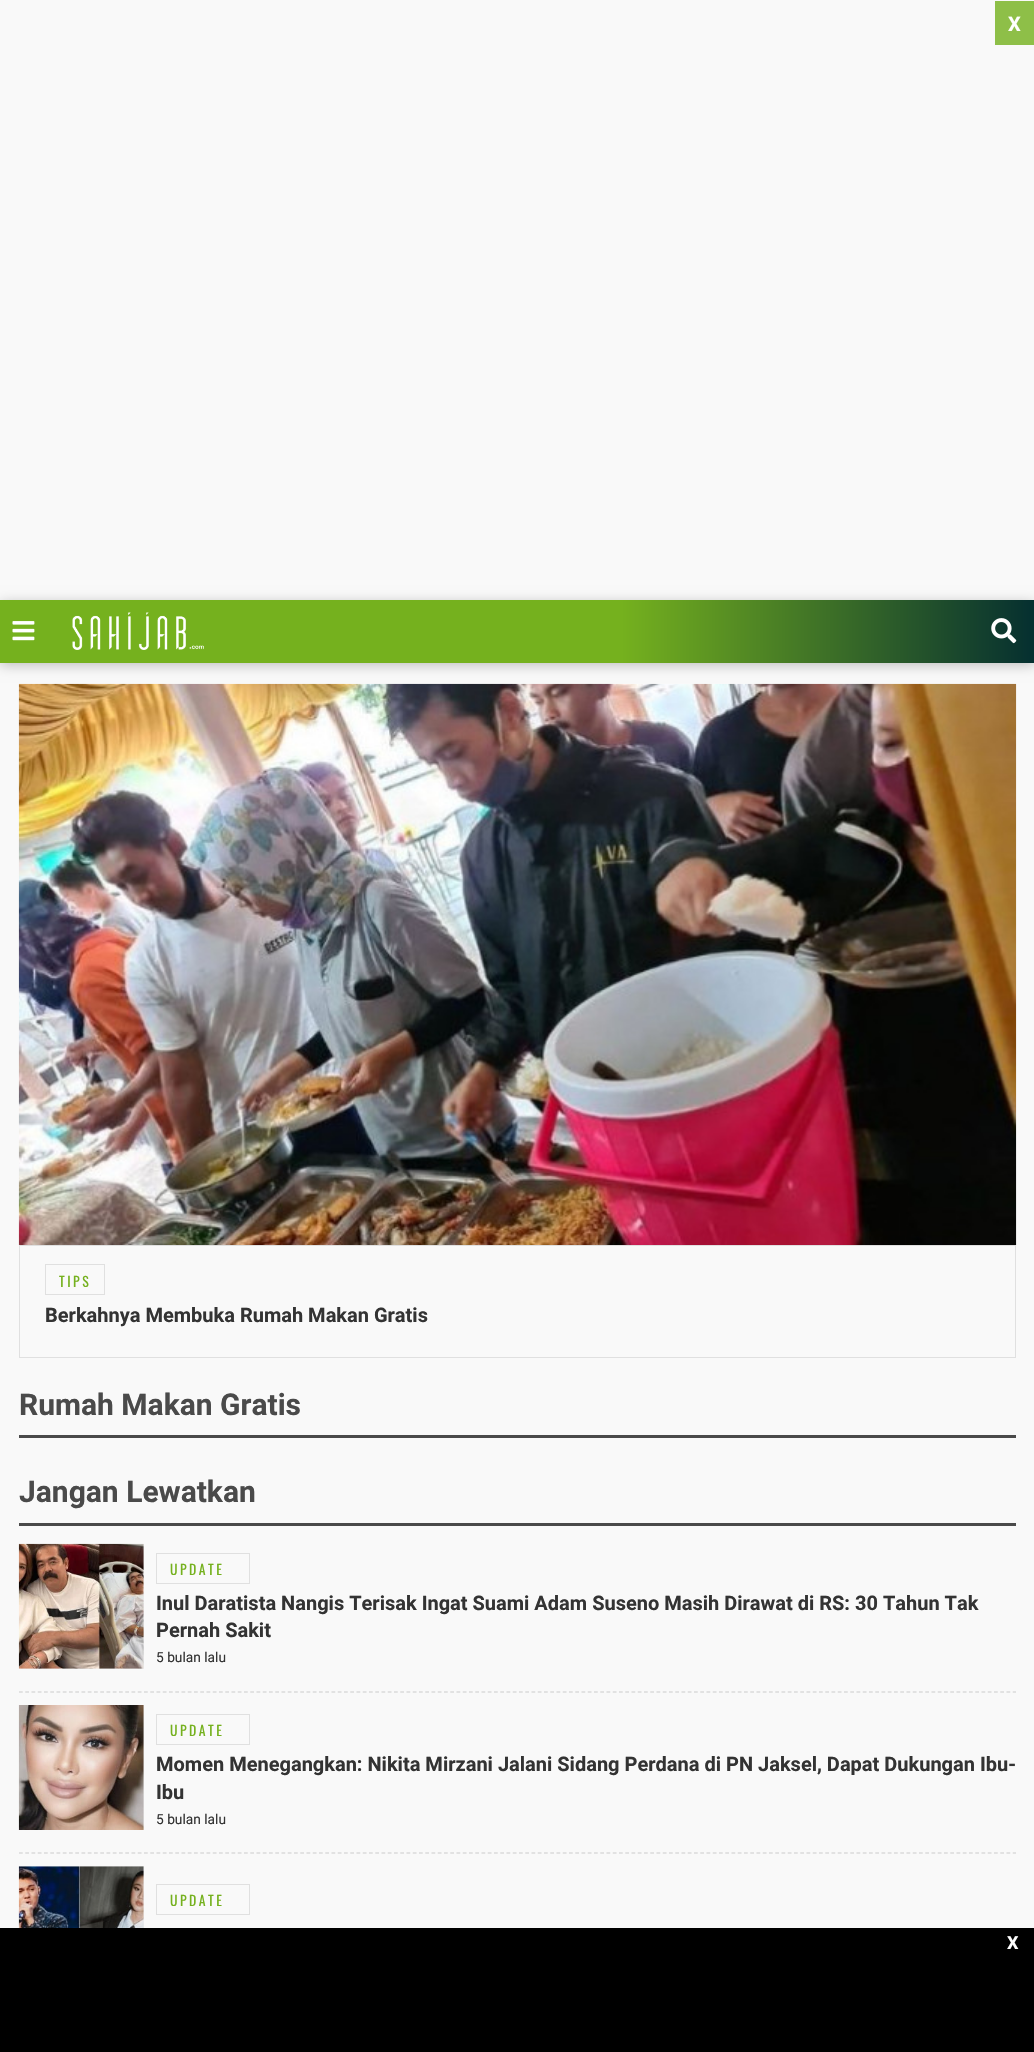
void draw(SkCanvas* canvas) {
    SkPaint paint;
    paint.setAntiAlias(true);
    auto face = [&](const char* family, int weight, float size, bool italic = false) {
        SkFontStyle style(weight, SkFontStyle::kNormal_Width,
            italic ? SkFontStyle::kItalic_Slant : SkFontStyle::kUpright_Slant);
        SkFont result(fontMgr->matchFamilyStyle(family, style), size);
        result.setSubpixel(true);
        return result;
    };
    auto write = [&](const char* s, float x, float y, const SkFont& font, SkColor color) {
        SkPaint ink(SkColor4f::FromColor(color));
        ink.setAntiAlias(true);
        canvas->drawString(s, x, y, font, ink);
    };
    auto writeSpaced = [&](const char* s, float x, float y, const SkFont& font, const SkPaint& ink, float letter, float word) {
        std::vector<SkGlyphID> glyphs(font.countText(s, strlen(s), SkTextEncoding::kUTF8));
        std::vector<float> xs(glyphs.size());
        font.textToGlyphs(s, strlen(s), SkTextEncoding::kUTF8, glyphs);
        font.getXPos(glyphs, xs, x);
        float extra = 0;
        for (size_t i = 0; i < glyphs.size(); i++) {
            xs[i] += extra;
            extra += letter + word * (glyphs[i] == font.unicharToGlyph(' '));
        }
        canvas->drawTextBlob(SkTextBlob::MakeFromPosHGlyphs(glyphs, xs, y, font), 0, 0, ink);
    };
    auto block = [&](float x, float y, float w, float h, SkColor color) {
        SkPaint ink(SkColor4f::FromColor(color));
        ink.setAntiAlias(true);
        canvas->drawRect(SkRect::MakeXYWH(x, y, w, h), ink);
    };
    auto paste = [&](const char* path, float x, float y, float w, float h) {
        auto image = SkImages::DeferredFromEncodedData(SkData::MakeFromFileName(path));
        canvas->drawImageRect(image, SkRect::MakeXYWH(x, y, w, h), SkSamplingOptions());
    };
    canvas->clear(SkColorSetRGB(249, 249, 249));
    block(995, 1, 39, 44, SkColorSetRGB(142, 191, 72));
    auto kFont1 = face("Roboto", 700, 20);
    write("X", 1008, 31, kFont1, SK_ColorWHITE);
    paint.setColor(SkColorSetARGB(64, 0, 0, 0));
    paint.setMaskFilter(SkMaskFilter::MakeBlur(kNormal_SkBlurStyle, 6));
    canvas->drawRect(SkRect::MakeXYWH(0, 603, 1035, 62), paint);
    paint.setMaskFilter(nullptr);
    {
        const SkColor colors[] = {SkColorSetRGB(117, 177, 30), SkColorSetRGB(117, 177, 30), SkColorSetRGB(5, 47, 48)};
        const float stops[] = {0, 0.6f, 1};
        const SkPoint ends[] = {{0, 631}, {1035, 631}};
        paint.setShader(SkGradientShader::MakeLinear(ends, colors, stops, 3, SkTileMode::kClamp));
        paint.setAlpha(255);
    }
    canvas->drawRect(SkRect::MakeXYWH(0, 600, 1034, 63), paint);
    paste("pic1.png", 12, 621, 23, 20);
    paste("pic2.png", 72, 612, 132, 38);
    paste("pic3.png", 991, 618, 26, 26);
    paste("pic4.png", 18, 683, 999, 562);
    paint.setStyle(SkPaint::kStroke_Style);
    paint.setStrokeWidth(1);
    paint.setShader(nullptr);
    paint.setColor(SkColorSetRGB(224, 224, 224));
    canvas->drawRect(SkRect::MakeXYWH(19.5f, 1245.5f, 996, 112), paint);
    canvas->drawRect(SkRect::MakeXYWH(45.5f, 1264.5f, 59, 30), paint);
    auto kFont2 = face("Oswald", 400, 13.75f);
    paint.setStyle(SkPaint::kFill_Style);
    paint.setColor(SkColorSetRGB(117, 177, 30));
    writeSpaced("TIPS", 59, 1287, kFont2, paint, 2.5f, 0);
    write("Berkahnya Membuka Rumah Makan Gratis", 45, 1322, kFont1, SkColorSetRGB(51, 51, 51));
    block(19, 1435, 997, 3, SkColorSetRGB(74, 74, 74));
    auto kFont3 = face("Roboto", 700, 30);
    write("Rumah Makan Gratis", 19, 1415, kFont3, SkColorSetRGB(74, 74, 74));
    block(19, 1523, 997, 3, SkColorSetRGB(74, 74, 74));
    write("Jangan Lewatkan", 19, 1502, kFont3, SkColorSetRGB(74, 74, 74));
    paint.setStyle(SkPaint::kStroke_Style);
    paint.setStrokeWidth(1.2f);
    paint.setColor(SkColorSetRGB(204, 204, 204));
    paint.setPathEffect(SkDashPathEffect::Make({{3.75f, 2.5f}}, 0));
    canvas->drawPath(SkPathBuilder().moveTo(19, 1692).lineTo(1016, 1692).detach(), paint);
    paint.setPathEffect(nullptr);
    block(19, 1544, 125, 125, SkColorSetRGB(238, 238, 238));
    paste("pic5.png", 18, 1543, 126, 126);
    paint.setStrokeWidth(1);
    paint.setColor(SkColorSetRGB(224, 224, 224));
    canvas->drawRect(SkRect::MakeXYWH(156.5f, 1553.5f, 93, 30), paint);
    paint.setStyle(SkPaint::kFill_Style);
    paint.setColor(SkColorSetRGB(117, 177, 30));
    writeSpaced("UPDATE", 170, 1575, kFont2, paint, 2.5f, 0);
    write("Inul Daratista Nangis Terisak Ingat Suami Adam Suseno Masih Dirawat di RS: 30 Tahun Tak", 156, 1610, kFont1, SkColorSetRGB(51, 51, 51));
    write("Pernah Sakit", 156, 1637, kFont1, SkColorSetRGB(51, 51, 51));
    auto kFont4 = face("Roboto", 400, 13.75f);
    write("5 bulan lalu", 156, 1662, kFont4, SkColorSetRGB(51, 51, 51));
    paint.setStyle(SkPaint::kStroke_Style);
    paint.setStrokeWidth(1.2f);
    paint.setColor(SkColorSetRGB(204, 204, 204));
    paint.setPathEffect(SkDashPathEffect::Make({{3.75f, 2.5f}}, 0));
    canvas->drawPath(SkPathBuilder().moveTo(19, 1853).lineTo(1016, 1853).detach(), paint);
    paint.setPathEffect(nullptr);
    block(143, 1705, 1, 125, SkColorSetRGB(238, 238, 238));
    paste("pic6.png", 18, 1705, 126, 125);
    paint.setStrokeWidth(1);
    paint.setColor(SkColorSetRGB(224, 224, 224));
    canvas->drawRect(SkRect::MakeXYWH(156.5f, 1714.5f, 93, 30), paint);
    paint.setStyle(SkPaint::kFill_Style);
    paint.setColor(SkColorSetRGB(117, 177, 30));
    writeSpaced("UPDATE", 170, 1736, kFont2, paint, 2.5f, 0);
    write("Momen Menegangkan: Nikita Mirzani Jalani Sidang Perdana di PN Jaksel, Dapat Dukungan Ibu-", 156, 1771, kFont1, SkColorSetRGB(51, 51, 51));
    write("Ibu", 156, 1799, kFont1, SkColorSetRGB(51, 51, 51));
    write("5 bulan lalu", 156, 1824, kFont4, SkColorSetRGB(51, 51, 51));
    block(19, 1866, 125, 62, SkColorSetRGB(238, 238, 238));
    paste("pic7.png", 18, 1866, 126, 62);
    paint.setStyle(SkPaint::kStroke_Style);
    paint.setColor(SkColorSetRGB(224, 224, 224));
    canvas->drawRect(SkRect::MakeXYWH(156.5f, 1884.5f, 93, 30), paint);
    paint.setStyle(SkPaint::kFill_Style);
    paint.setColor(SkColorSetRGB(117, 177, 30));
    writeSpaced("UPDATE", 170, 1906, kFont2, paint, 2.5f, 0);
    block(0, 1928, 1034, 124, SK_ColorBLACK);
    auto kFont5 = face("Roboto", 700, 18);
    write("X", 1007, 1949, kFont5, SK_ColorWHITE);
}
